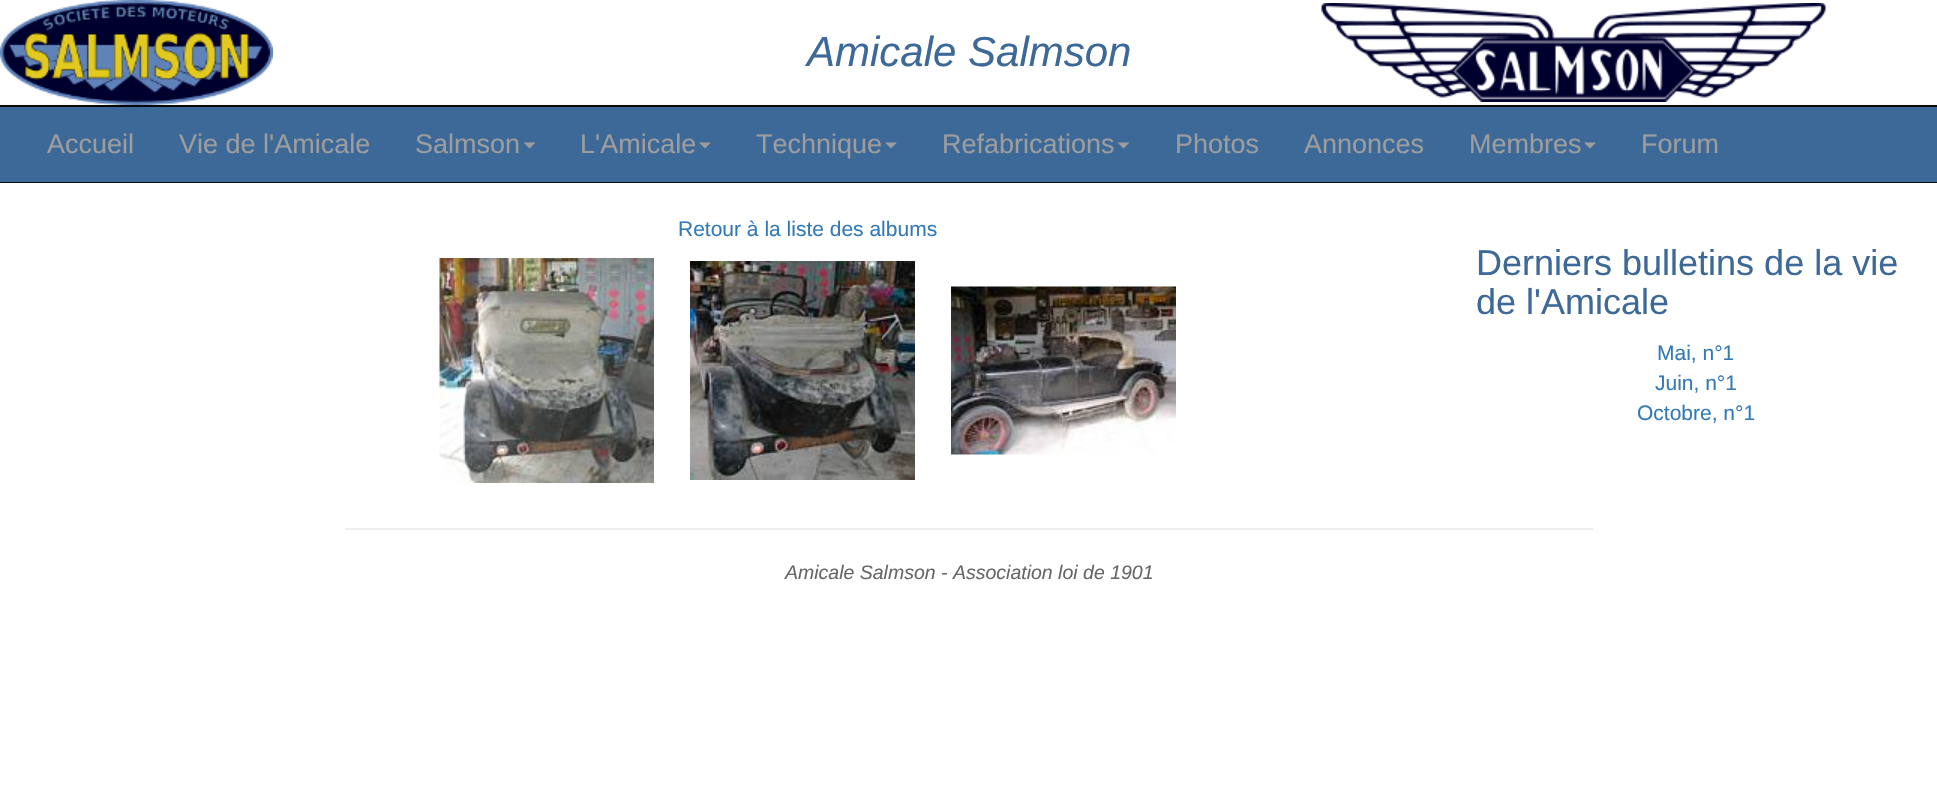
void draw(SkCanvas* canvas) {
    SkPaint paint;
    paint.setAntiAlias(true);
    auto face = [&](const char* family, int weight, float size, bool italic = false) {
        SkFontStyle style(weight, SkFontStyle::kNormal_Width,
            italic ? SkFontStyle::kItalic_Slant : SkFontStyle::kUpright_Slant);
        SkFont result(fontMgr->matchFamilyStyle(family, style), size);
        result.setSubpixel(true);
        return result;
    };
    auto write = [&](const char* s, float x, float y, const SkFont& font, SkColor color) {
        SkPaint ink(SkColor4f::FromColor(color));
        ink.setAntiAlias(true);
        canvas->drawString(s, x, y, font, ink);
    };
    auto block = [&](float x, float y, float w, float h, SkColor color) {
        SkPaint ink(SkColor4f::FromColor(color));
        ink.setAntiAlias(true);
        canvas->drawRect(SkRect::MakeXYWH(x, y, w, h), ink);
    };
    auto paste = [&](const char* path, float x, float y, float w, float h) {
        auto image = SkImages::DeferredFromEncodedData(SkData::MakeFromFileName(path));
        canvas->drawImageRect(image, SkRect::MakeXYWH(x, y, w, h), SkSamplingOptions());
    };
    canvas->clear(SK_ColorWHITE);
    paste("pic1.png", 0, 0, 273, 105);
    auto kFont1 = face("Liberation Sans", 400, 42, true);
    write("Amicale Salmson", 807, 66, kFont1, SkColorSetRGB(61, 105, 153));
    paste("pic2.png", 1321, 3, 505, 99);
    paint.setStyle(SkPaint::kStroke_Style);
    paint.setStrokeWidth(2);
    paint.setColor(SkColorSetRGB(8, 8, 8));
    canvas->drawRect(SkRect::MakeXYWH(-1, 106, 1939, 76), paint);
    block(0, 107, 1937, 75, SkColorSetRGB(61, 105, 153));
    auto kFont2 = face("Liberation Sans", 400, 27);
    write("Accueil", 47, 153, kFont2, SkColorSetRGB(157, 157, 157));
    write("Vie de l'Amicale", 179, 153, kFont2, SkColorSetRGB(157, 157, 157));
    write("Salmson", 415, 153, kFont2, SkColorSetRGB(157, 157, 157));
    paint.setStyle(SkPaint::kFill_Style);
    paint.setColor(SkColorSetRGB(157, 157, 157));
    canvas->drawPath(SkPathBuilder().moveTo(523.5f, 142.5f).lineTo(535.5f, 142.5f).lineTo(529.5f, 148.5f).close().detach(), paint);
    write("L'Amicale", 580, 153, kFont2, SkColorSetRGB(157, 157, 157));
    canvas->drawPath(SkPathBuilder().moveTo(699, 142.5f).lineTo(711, 142.5f).lineTo(705, 148.5f).close().detach(), paint);
    write("Technique", 756, 153, kFont2, SkColorSetRGB(157, 157, 157));
    canvas->drawPath(SkPathBuilder().moveTo(885, 142.5f).lineTo(897, 142.5f).lineTo(891, 148.5f).close().detach(), paint);
    write("Refabrications", 942, 153, kFont2, SkColorSetRGB(157, 157, 157));
    canvas->drawPath(SkPathBuilder().moveTo(1117.5f, 142.5f).lineTo(1129.5f, 142.5f).lineTo(1123.5f, 148.5f).close().detach(), paint);
    write("Photos", 1175, 153, kFont2, SkColorSetRGB(157, 157, 157));
    write("Annonces", 1304, 153, kFont2, SkColorSetRGB(157, 157, 157));
    write("Membres", 1469, 153, kFont2, SkColorSetRGB(157, 157, 157));
    canvas->drawPath(SkPathBuilder().moveTo(1584, 142.5f).lineTo(1596, 142.5f).lineTo(1590, 148.5f).close().detach(), paint);
    write("Forum", 1641, 153, kFont2, SkColorSetRGB(157, 157, 157));
    auto kFont3 = face("Liberation Sans", 400, 21);
    write("Retour à la liste des albums", 678, 236, kFont3, SkColorSetRGB(51, 122, 183));
    paste("pic3.png", 439, 258, 215, 225);
    paste("pic4.png", 690, 261, 225, 219);
    paste("pic5.png", 951, 286, 225, 169);
    auto kFont4 = face("Liberation Sans", 400, 36);
    write("Derniers bulletins de la vie", 1476, 275, kFont4, SkColorSetRGB(61, 105, 153));
    write("de l'Amicale", 1476, 314, kFont4, SkColorSetRGB(61, 105, 153));
    write("Mai, n°1", 1657, 360, kFont3, SkColorSetRGB(51, 122, 183));
    write("Juin, n°1", 1655, 390, kFont3, SkColorSetRGB(51, 122, 183));
    write("Octobre, n°1", 1637, 420, kFont3, SkColorSetRGB(51, 122, 183));
    block(345, 528, 1248, 2, SkColorSetRGB(238, 238, 238));
    auto kFont5 = face("Liberation Sans", 400, 19.5f, true);
    write("Amicale Salmson - Association loi de 1901", 785, 579, kFont5, SkColorSetRGB(102, 102, 102));
}
